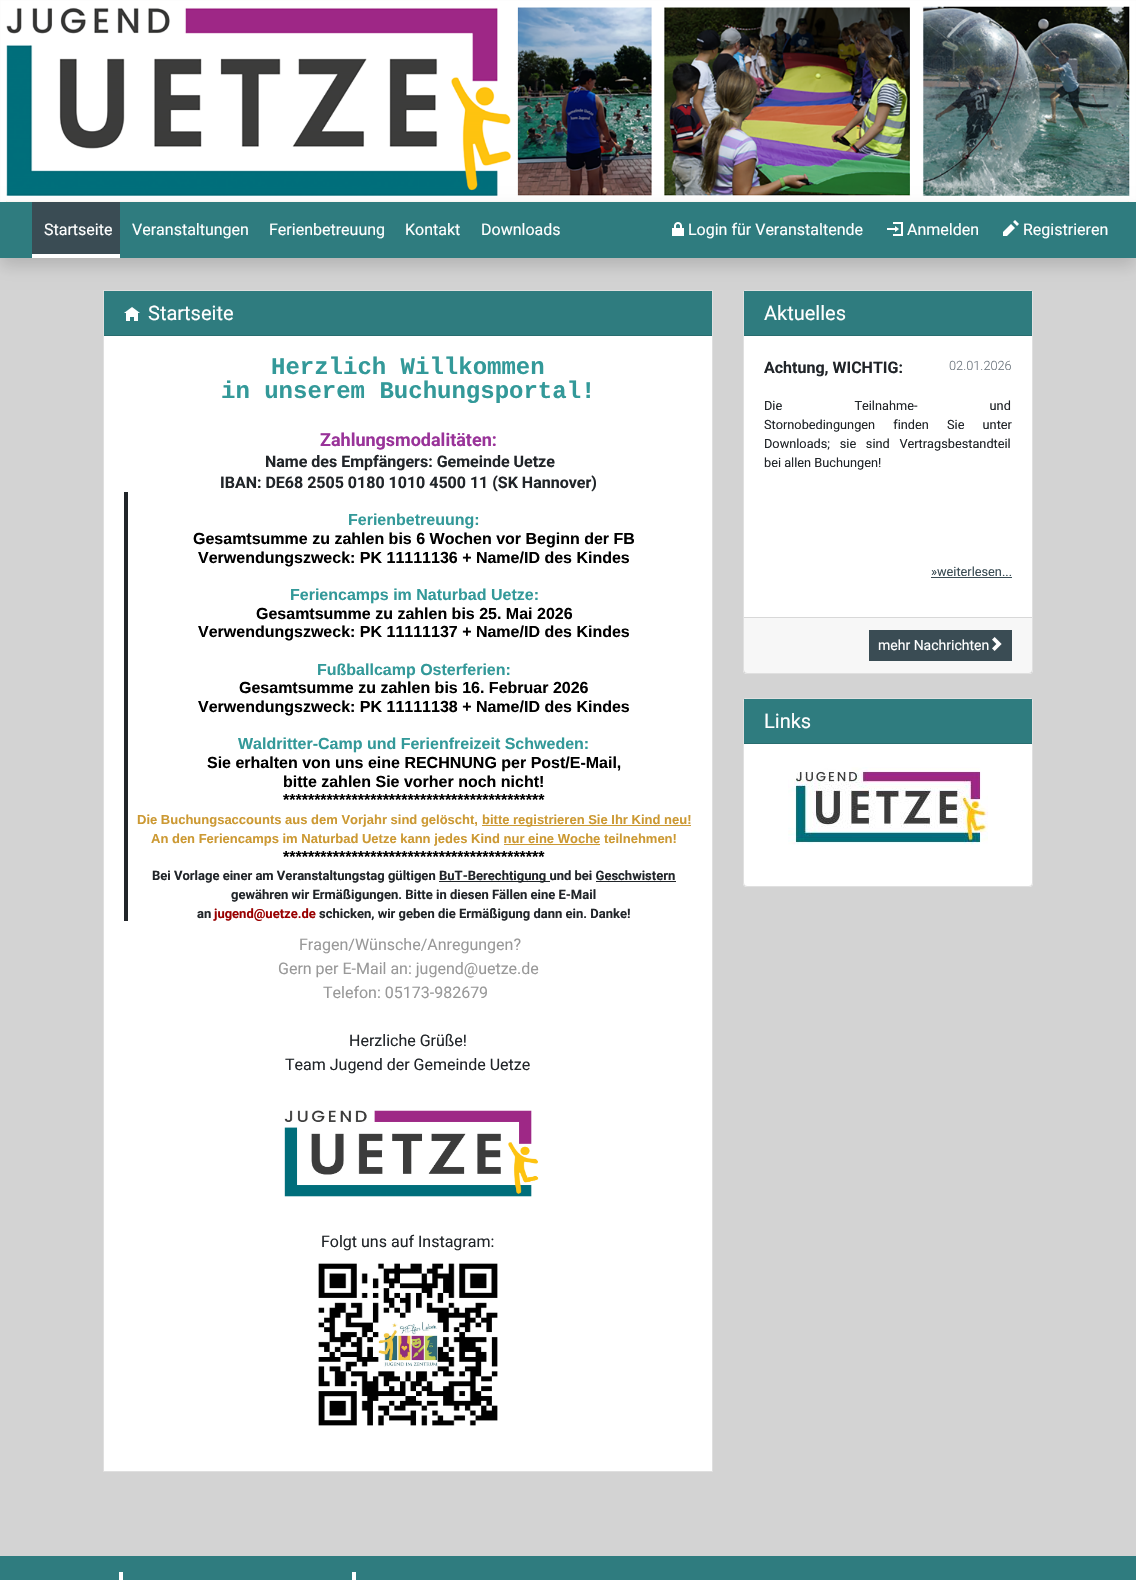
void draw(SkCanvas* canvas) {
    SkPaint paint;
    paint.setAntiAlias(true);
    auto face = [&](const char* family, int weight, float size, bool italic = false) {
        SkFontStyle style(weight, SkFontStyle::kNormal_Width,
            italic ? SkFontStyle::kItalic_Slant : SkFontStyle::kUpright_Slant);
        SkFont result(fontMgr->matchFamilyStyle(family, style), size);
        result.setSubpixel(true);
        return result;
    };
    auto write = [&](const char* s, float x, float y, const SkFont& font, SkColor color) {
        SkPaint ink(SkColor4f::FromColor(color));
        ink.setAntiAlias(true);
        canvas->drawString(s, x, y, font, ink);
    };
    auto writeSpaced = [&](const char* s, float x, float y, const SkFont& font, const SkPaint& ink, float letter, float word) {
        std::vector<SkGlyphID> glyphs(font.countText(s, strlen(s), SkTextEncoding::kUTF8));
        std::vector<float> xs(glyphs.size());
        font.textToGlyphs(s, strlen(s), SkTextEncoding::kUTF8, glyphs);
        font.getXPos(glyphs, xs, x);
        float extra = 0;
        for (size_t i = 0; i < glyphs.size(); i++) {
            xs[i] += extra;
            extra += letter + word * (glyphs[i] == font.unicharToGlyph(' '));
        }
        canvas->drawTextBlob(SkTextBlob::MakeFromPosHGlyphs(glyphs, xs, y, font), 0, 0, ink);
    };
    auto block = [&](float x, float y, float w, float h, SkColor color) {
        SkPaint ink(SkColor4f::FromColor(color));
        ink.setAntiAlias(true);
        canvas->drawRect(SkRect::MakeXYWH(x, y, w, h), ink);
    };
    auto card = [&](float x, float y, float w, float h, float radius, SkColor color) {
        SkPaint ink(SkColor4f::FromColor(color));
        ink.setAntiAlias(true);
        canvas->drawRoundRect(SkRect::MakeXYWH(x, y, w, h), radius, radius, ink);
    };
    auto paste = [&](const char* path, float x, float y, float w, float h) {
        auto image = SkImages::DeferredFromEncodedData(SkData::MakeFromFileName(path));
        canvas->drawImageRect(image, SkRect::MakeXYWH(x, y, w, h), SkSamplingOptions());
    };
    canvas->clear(SkColorSetRGB(211, 211, 211));
    paste("pic1.png", 0, 0, 1136, 202);
    block(104, 336, 608, 1135, SK_ColorWHITE);
    paint.setStyle(SkPaint::kStroke_Style);
    paint.setStrokeWidth(1);
    paint.setColor(SkColorSetRGB(223, 223, 223));
    canvas->drawRect(SkRect::MakeXYWH(103.5f, 290.5f, 609, 1181), paint);
    card(743, 290, 290, 384, 4, SK_ColorWHITE);
    paint.setColor(SkColorSetARGB(31, 0, 0, 0));
    canvas->drawRoundRect(SkRect::MakeXYWH(743.5f, 290.5f, 289, 383), 3.5f, 3.5f, paint);
    paint.setStyle(SkPaint::kFill_Style);
    paint.setColor(SkColorSetARGB(38, 0, 0, 0));
    paint.setMaskFilter(SkMaskFilter::MakeBlur(kNormal_SkBlurStyle, 8));
    canvas->drawRect(SkRect::MakeXYWH(0, 210, 1136, 56), paint);
    paint.setMaskFilter(nullptr);
    block(0, 202, 1136, 56, SkColorSetRGB(47, 124, 127));
    block(32, 202, 88, 52, SkColorSetRGB(58, 76, 84));
    block(32, 254, 88, 4, SK_ColorWHITE);
    auto kFont1 = face("Roboto", 400, 16);
    write("Startseite", 44, 235, kFont1, SK_ColorWHITE);
    write("Veranstaltungen", 132, 235, kFont1, SK_ColorWHITE);
    write("Ferienbetreuung", 269, 235, kFont1, SK_ColorWHITE);
    write("Kontakt", 405, 235, kFont1, SK_ColorWHITE);
    write("Downloads", 481, 235, kFont1, SK_ColorWHITE);
    paste("pic2.png", 672, 222, 12, 14);
    write("Login für Veranstaltende", 688, 235, kFont1, SK_ColorWHITE);
    paste("pic3.png", 887, 222, 16, 14);
    write("Anmelden", 907, 235, kFont1, SK_ColorWHITE);
    paste("pic4.png", 1003, 220, 16, 16);
    write("Registrieren", 1023, 235, kFont1, SK_ColorWHITE);
    block(104, 291, 608, 44, SkColorSetRGB(47, 124, 127));
    block(104, 335, 608, 1, SkColorSetRGB(41, 109, 111));
    paste("pic5.png", 124, 307, 16, 14);
    auto kFont2 = face("Roboto", 400, 20);
    write("Startseite", 148, 320, kFont2, SK_ColorWHITE);
    auto kFont3 = face("Liberation Mono", 700, 24);
    write("Herzlich Willkommen", 271, 374, kFont3, SkColorSetRGB(51, 153, 153));
    write("in unserem Buchungsportal!", 221, 398, kFont3, SkColorSetRGB(51, 153, 153));
    auto kFont4 = face("Roboto", 700, 18);
    write("Zahlungsmodalitäten:", 320, 446, kFont4, SkColorSetRGB(153, 51, 153));
    auto kFont5 = face("Roboto", 700, 16);
    write("Name des Empfängers: Gemeinde Uetze", 265, 467, kFont5, SkColorSetRGB(33, 37, 41));
    write("IBAN: DE68 2505 0180 1010 4500 11 (SK Hannover)", 220, 488, kFont5, SkColorSetRGB(33, 37, 41));
    block(124, 492, 4, 429, SkColorSetRGB(33, 37, 41));
    auto kFont6 = face("Liberation Sans", 700, 16);
    write("Ferienbetreuung:", 348, 525, kFont6, SkColorSetRGB(51, 153, 153));
    write("Gesamtsumme zu zahlen bis 6 Wochen vor Beginn der FB", 193, 544, kFont6, SK_ColorBLACK);
    write("Verwendungszweck: PK 11111136 + Name/ID des Kindes", 198, 563, kFont6, SK_ColorBLACK);
    write("Feriencamps im Naturbad Uetze:", 290, 600, kFont6, SkColorSetRGB(51, 153, 153));
    write("Gesamtsumme zu zahlen bis 25. Mai 2026", 256, 619, kFont6, SK_ColorBLACK);
    write("Verwendungszweck: PK 11111137 + Name/ID des Kindes", 198, 637, kFont6, SK_ColorBLACK);
    write("Fußballcamp Osterferien:", 317, 675, kFont6, SkColorSetRGB(51, 153, 153));
    write("Gesamtsumme zu zahlen bis 16. Februar 2026", 239, 693, kFont6, SK_ColorBLACK);
    write("Verwendungszweck: PK 11111138 + Name/ID des Kindes", 198, 712, kFont6, SK_ColorBLACK);
    write("Waldritter-Camp und Ferienfreizeit Schweden:", 238, 749, kFont6, SkColorSetRGB(51, 153, 153));
    write("Sie erhalten von uns eine RECHNUNG per Post/E-Mail,", 207, 768, kFont6, SK_ColorBLACK);
    write("bitte zahlen Sie vorher noch nicht!", 283, 787, kFont6, SK_ColorBLACK);
    write("******************************************", 283, 805, kFont6, SK_ColorBLACK);
    auto kFont7 = face("Liberation Sans", 700, 13);
    write("Die Buchungsaccounts aus dem Vorjahr sind gelöscht,", 137, 824, kFont7, SkColorSetRGB(204, 153, 51));
    block(482, 825, 209, 1, SkColorSetRGB(204, 153, 51));
    write("bitte registrieren Sie Ihr Kind neu!", 482, 824, kFont7, SkColorSetRGB(204, 153, 51));
    write("An den Feriencamps im Naturbad Uetze kann jedes Kind nur eine Woche teilnehmen!", 151, 843, kFont7, SkColorSetRGB(204, 153, 51));
    block(504, 844, 96, 1, SkColorSetRGB(204, 153, 51));
    write("******************************************", 283, 862, kFont6, SK_ColorBLACK);
    auto kFont8 = face("Roboto", 700, 13);
    write("Bei Vorlage einer am Veranstaltungstag gültigen", 152, 880, kFont8, SkColorSetRGB(33, 37, 41));
    block(439, 881, 111, 1, SkColorSetRGB(33, 37, 41));
    write("BuT-Berechtigung und bei Geschwistern", 439, 880, kFont8, SkColorSetRGB(33, 37, 41));
    block(596, 881, 80, 1, SkColorSetRGB(33, 37, 41));
    write("gewähren wir Ermäßigungen. Bitte in diesen Fällen eine E-Mail", 231, 899, kFont8, SkColorSetRGB(33, 37, 41));
    write("an", 197, 918, kFont8, SkColorSetRGB(33, 37, 41));
    write("jugend@uetze.de", 214, 918, kFont8, SkColorSetRGB(153, 0, 0));
    write("schicken, wir geben die Ermäßigung dann ein. Danke!", 319, 918, kFont8, SkColorSetRGB(33, 37, 41));
    write("Fragen/Wünsche/Anregungen?", 299, 950, kFont1, SkColorSetRGB(153, 153, 153));
    write("Gern per E-Mail an: jugend@uetze.de", 278, 974, kFont1, SkColorSetRGB(153, 153, 153));
    write("Telefon: 05173-982679", 323, 998, kFont1, SkColorSetRGB(153, 153, 153));
    write("Herzliche Grüße!", 349, 1046, kFont1, SkColorSetRGB(33, 37, 41));
    write("Team Jugend der Gemeinde Uetze", 285, 1070, kFont1, SkColorSetRGB(33, 37, 41));
    paste("pic6.png", 284, 1110, 255, 87);
    write("Folgt uns auf Instagram:", 321, 1247, kFont1, SkColorSetRGB(33, 37, 41));
    paste("pic7.png", 318, 1263, 180, 163);
    block(744, 291, 288, 44, SkColorSetRGB(47, 124, 127));
    block(744, 335, 288, 1, SkColorSetRGB(41, 109, 111));
    write("Aktuelles", 764, 320, kFont2, SK_ColorWHITE);
    write("Achtung, WICHTIG:", 764, 373, kFont5, SkColorSetRGB(33, 37, 41));
    auto kFont9 = face("Roboto", 300, 12.75f);
    write("02.01.2026", 949, 370, kFont9, SkColorSetRGB(108, 117, 125));
    auto kFont10 = face("Roboto", 400, 12.75f);
    paint.setColor(SkColorSetRGB(33, 37, 41));
    writeSpaced("Die Teilnahme- und", 764, 410, kFont10, paint, 0, 69);
    writeSpaced("Stornobedingungen finden Sie unter", 764, 429, kFont10, paint, 0, 15);
    writeSpaced("Downloads; sie sind Vertragsbestandteil", 764, 448, kFont10, paint, 0, 6.5f);
    write("bei allen Buchungen!", 764, 467, kFont10, SkColorSetRGB(33, 37, 41));
    write("»weiterlesen...", 931, 576, kFont10, SkColorSetRGB(58, 76, 84));
    block(931, 577, 81, 1, SkColorSetRGB(58, 76, 84));
    block(744, 618, 288, 55, SkColorSetARGB(8, 0, 0, 0));
    block(744, 617, 288, 1, SkColorSetRGB(216, 216, 216));
    block(869, 630, 143, 31, SkColorSetRGB(58, 76, 84));
    auto kFont11 = face("Roboto", 400, 14);
    write("mehr Nachrichten", 878, 650, kFont11, SK_ColorWHITE);
    paste("pic8.png", 992, 637, 10, 14);
    card(743, 698, 290, 189, 4, SK_ColorWHITE);
    paint.setStyle(SkPaint::kStroke_Style);
    paint.setColor(SkColorSetARGB(31, 0, 0, 0));
    canvas->drawRoundRect(SkRect::MakeXYWH(743.5f, 698.5f, 289, 188), 3.5f, 3.5f, paint);
    block(744, 699, 288, 44, SkColorSetRGB(47, 124, 127));
    block(744, 743, 288, 1, SkColorSetRGB(41, 109, 111));
    write("Links", 764, 728, kFont2, SK_ColorWHITE);
    paste("pic9.png", 788, 767, 200, 78);
    block(0, 1556, 1136, 24, SkColorSetRGB(47, 124, 127));
    block(119, 1572, 4, 8, SK_ColorWHITE);
    block(352, 1572, 4, 8, SK_ColorWHITE);
}
